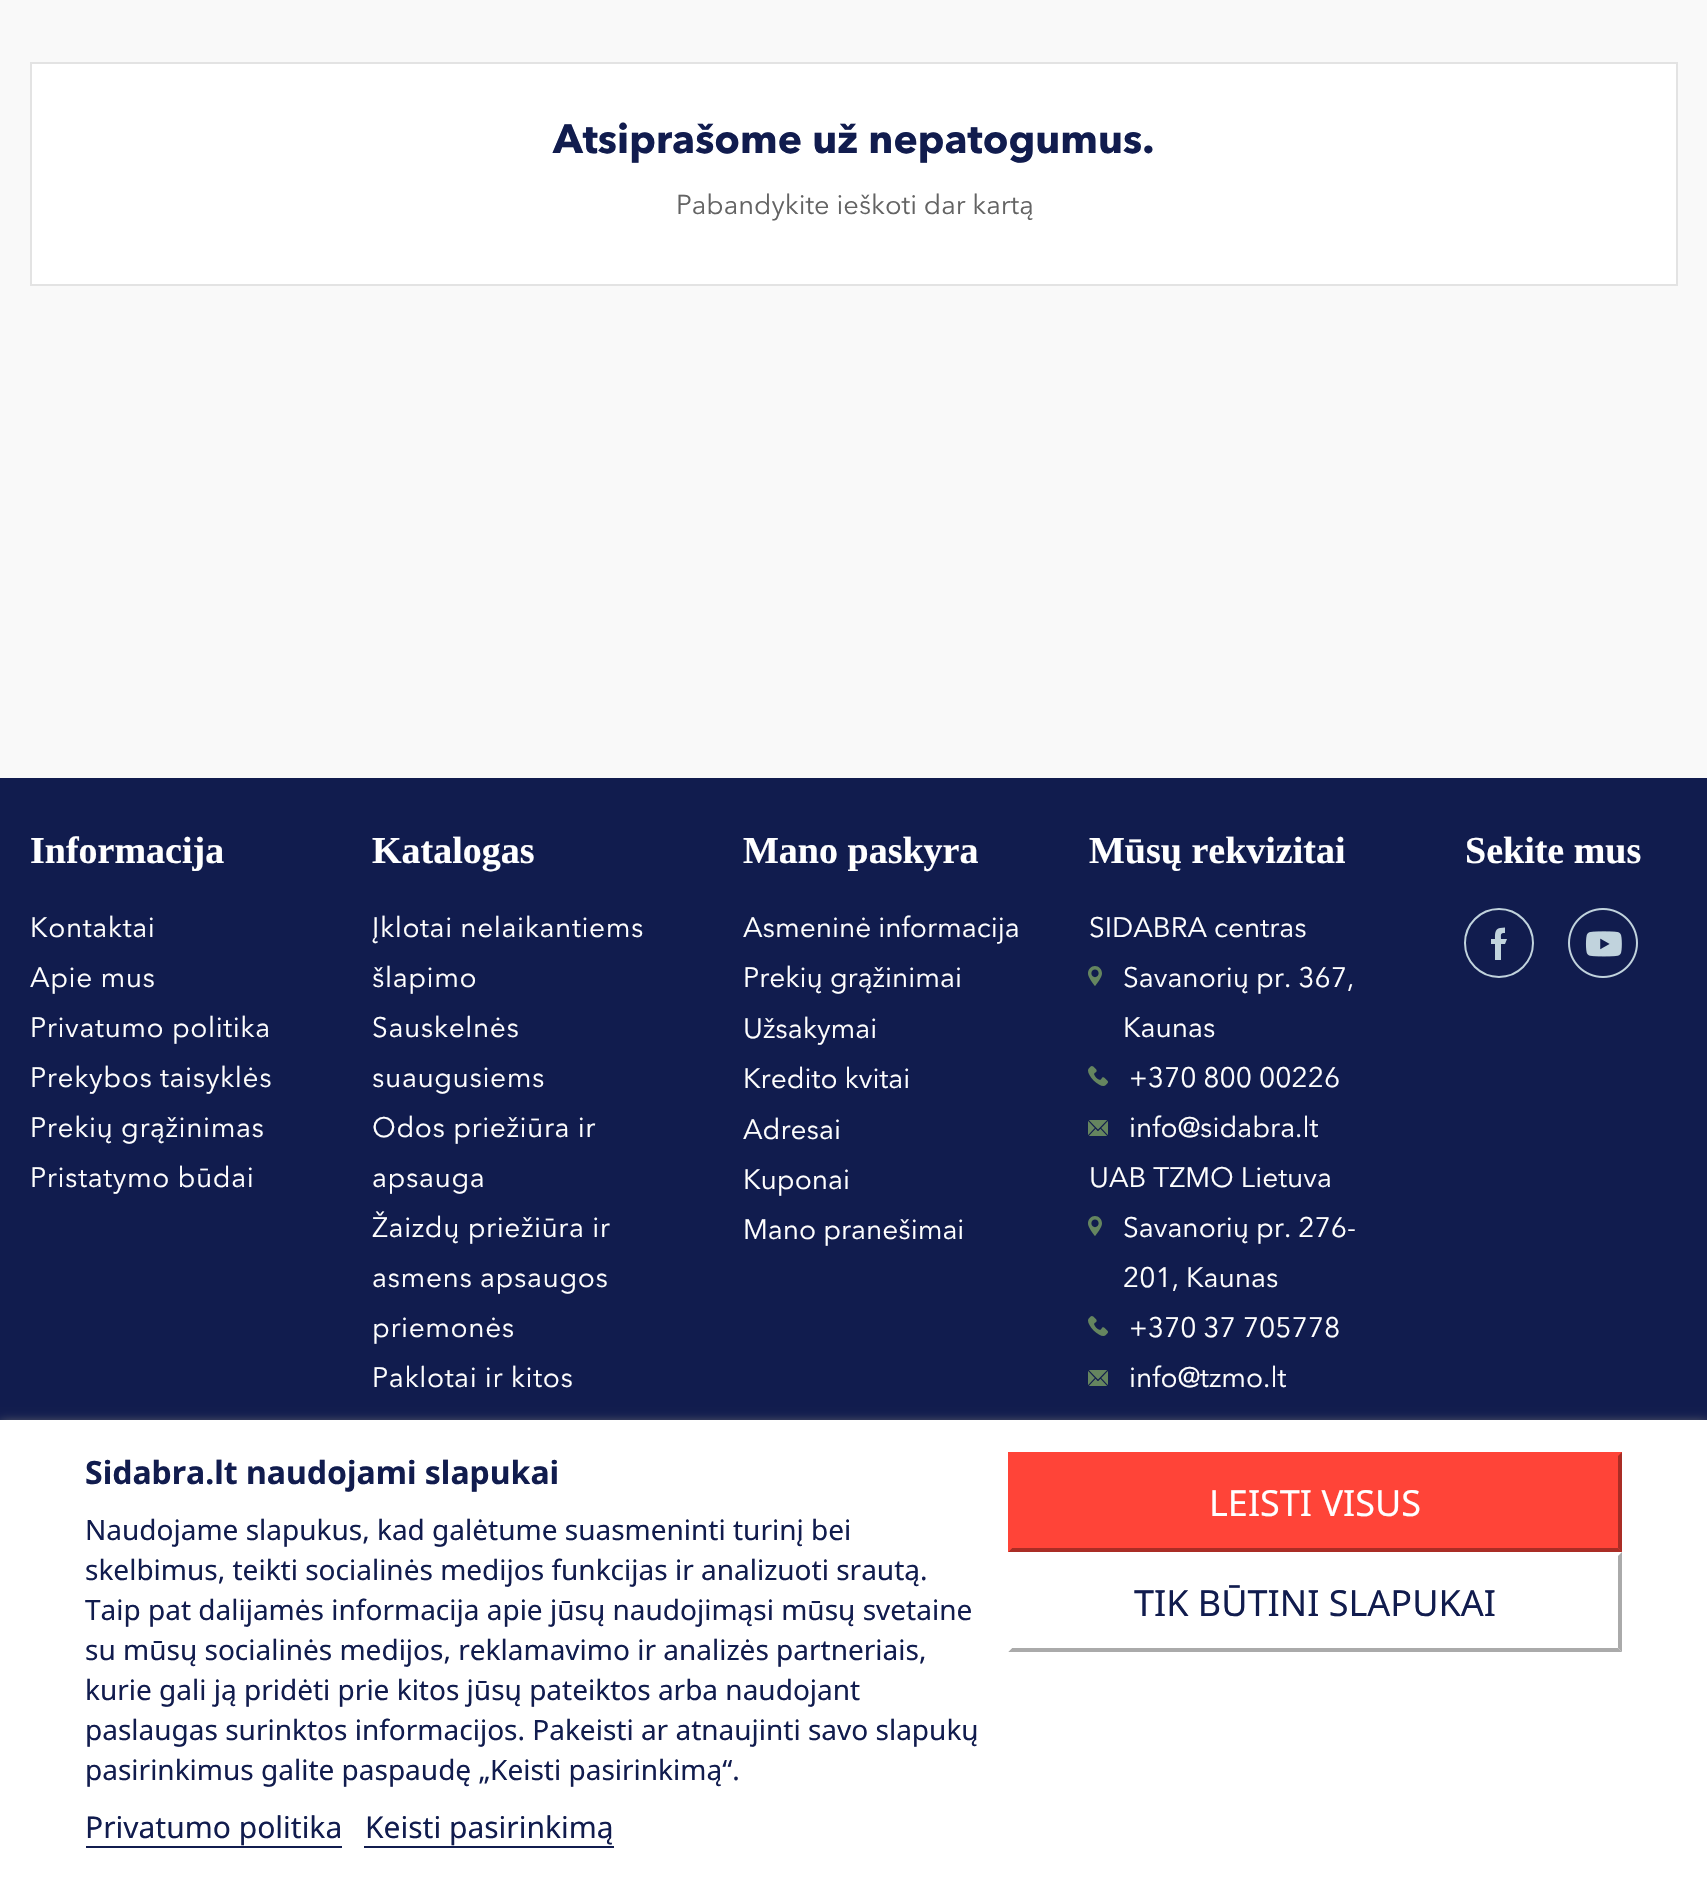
void draw(SkCanvas* canvas) {
    SkPaint paint;
    paint.setAntiAlias(true);
    auto face = [&](const char* family, int weight, float size, bool italic = false) {
        SkFontStyle style(weight, SkFontStyle::kNormal_Width,
            italic ? SkFontStyle::kItalic_Slant : SkFontStyle::kUpright_Slant);
        SkFont result(fontMgr->matchFamilyStyle(family, style), size);
        result.setSubpixel(true);
        return result;
    };
    auto write = [&](const char* s, float x, float y, const SkFont& font, SkColor color) {
        SkPaint ink(SkColor4f::FromColor(color));
        ink.setAntiAlias(true);
        canvas->drawString(s, x, y, font, ink);
    };
    auto writeSpaced = [&](const char* s, float x, float y, const SkFont& font, const SkPaint& ink, float letter, float word) {
        std::vector<SkGlyphID> glyphs(font.countText(s, strlen(s), SkTextEncoding::kUTF8));
        std::vector<float> xs(glyphs.size());
        font.textToGlyphs(s, strlen(s), SkTextEncoding::kUTF8, glyphs);
        font.getXPos(glyphs, xs, x);
        float extra = 0;
        for (size_t i = 0; i < glyphs.size(); i++) {
            xs[i] += extra;
            extra += letter + word * (glyphs[i] == font.unicharToGlyph(' '));
        }
        canvas->drawTextBlob(SkTextBlob::MakeFromPosHGlyphs(glyphs, xs, y, font), 0, 0, ink);
    };
    auto block = [&](float x, float y, float w, float h, SkColor color) {
        SkPaint ink(SkColor4f::FromColor(color));
        ink.setAntiAlias(true);
        canvas->drawRect(SkRect::MakeXYWH(x, y, w, h), ink);
    };
    auto paste = [&](const char* path, float x, float y, float w, float h) {
        auto image = SkImages::DeferredFromEncodedData(SkData::MakeFromFileName(path));
        canvas->drawImageRect(image, SkRect::MakeXYWH(x, y, w, h), SkSamplingOptions());
    };
    canvas->clear(SkColorSetRGB(249, 249, 249));
    paint.setColor(SK_ColorWHITE);
    canvas->drawRect(SkRect::MakeXYWH(31, 63, 1646, 222), paint);
    paint.setStyle(SkPaint::kStroke_Style);
    paint.setStrokeWidth(2);
    paint.setColor(SkColorSetRGB(227, 227, 227));
    canvas->drawRect(SkRect::MakeXYWH(31, 63, 1646, 222), paint);
    auto kFont1 = face("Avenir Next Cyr", 700, 40.75f);
    write("Atsiprašome už nepatogumus.", 553, 153, kFont1, SkColorSetRGB(17, 28, 78));
    auto kFont2 = face("Avenir Next Cyr", 400, 27.25f);
    write("Pabandykite ieškoti dar kartą", 676, 214, kFont2, SkColorSetRGB(99, 99, 99));
    block(0, 778, 1707, 642, SkColorSetRGB(17, 28, 78));
    auto kFont3 = face("Liberation Serif", 700, 38);
    write("Informacija", 30, 863, kFont3, SK_ColorWHITE);
    auto kFont4 = face("Avenir Next Cyr", 400, 28);
    paint.setStyle(SkPaint::kFill_Style);
    paint.setColor(SK_ColorWHITE);
    writeSpaced("Kontaktai", 30, 937, kFont4, paint, 0.6f, 0);
    writeSpaced("Apie mus", 30, 987, kFont4, paint, 0.6f, 0);
    writeSpaced("Privatumo politika", 30, 1037, kFont4, paint, 0.6f, 0);
    writeSpaced("Prekybos taisyklės", 30, 1087, kFont4, paint, 0.6f, 0);
    writeSpaced("Prekių grąžinimas", 30, 1137, kFont4, paint, 0.6f, 0);
    writeSpaced("Pristatymo būdai", 30, 1187, kFont4, paint, 0.6f, 0);
    write("Katalogas", 372, 863, kFont3, SK_ColorWHITE);
    writeSpaced("Įklotai nelaikantiems", 372, 937, kFont4, paint, 0.6f, 0);
    writeSpaced("šlapimo", 372, 987, kFont4, paint, 0.6f, 0);
    writeSpaced("Sauskelnės", 372, 1037, kFont4, paint, 0.6f, 0);
    writeSpaced("suaugusiems", 372, 1087, kFont4, paint, 0.6f, 0);
    writeSpaced("Odos priežiūra ir", 372, 1137, kFont4, paint, 0.6f, 0);
    writeSpaced("apsauga", 372, 1187, kFont4, paint, 0.6f, 0);
    writeSpaced("Žaizdų priežiūra ir", 372, 1237, kFont4, paint, 0.6f, 0);
    writeSpaced("asmens apsaugos", 372, 1287, kFont4, paint, 0.6f, 0);
    writeSpaced("priemonės", 372, 1337, kFont4, paint, 0.6f, 0);
    writeSpaced("Paklotai ir kitos", 372, 1387, kFont4, paint, 0.6f, 0);
    write("Mano paskyra", 743, 863, kFont3, SK_ColorWHITE);
    write("Asmeninė informacija", 743, 937, kFont4, SK_ColorWHITE);
    write("Prekių grąžinimai", 743, 987, kFont4, SK_ColorWHITE);
    write("Užsakymai", 743, 1038, kFont4, SK_ColorWHITE);
    write("Kredito kvitai", 743, 1088, kFont4, SK_ColorWHITE);
    write("Adresai", 743, 1139, kFont4, SK_ColorWHITE);
    write("Kuponai", 743, 1189, kFont4, SK_ColorWHITE);
    write("Mano pranešimai", 743, 1239, kFont4, SK_ColorWHITE);
    write("Mūsų rekvizitai", 1089, 863, kFont3, SK_ColorWHITE);
    write("SIDABRA centras", 1089, 937, kFont4, SK_ColorWHITE);
    paste("pic1.png", 1088, 966, 14, 20);
    write("Savanorių pr. 367,", 1123, 987, kFont4, SK_ColorWHITE);
    write("Kaunas", 1123, 1037, kFont4, SK_ColorWHITE);
    paste("pic2.png", 1088, 1066, 20, 20);
    write("+370 800 00226", 1129, 1087, kFont4, SK_ColorWHITE);
    paste("pic3.png", 1088, 1120, 20, 16);
    write("info@sidabra.lt", 1129, 1137, kFont4, SK_ColorWHITE);
    write("UAB TZMO Lietuva", 1089, 1187, kFont4, SK_ColorWHITE);
    paste("pic1.png", 1088, 1216, 14, 20);
    write("Savanorių pr. 276-", 1123, 1237, kFont4, SK_ColorWHITE);
    write("201, Kaunas", 1123, 1287, kFont4, SK_ColorWHITE);
    paste("pic2.png", 1088, 1316, 20, 20);
    write("+370 37 705778", 1129, 1337, kFont4, SK_ColorWHITE);
    paste("pic3.png", 1088, 1370, 20, 16);
    write("info@tzmo.lt", 1129, 1387, kFont4, SK_ColorWHITE);
    write("Sekite mus", 1465, 863, kFont3, SK_ColorWHITE);
    paint.setStyle(SkPaint::kStroke_Style);
    paint.setColor(SkColorSetRGB(193, 211, 221));
    canvas->drawCircle(1499, 943, 34, paint);
    paint.setStyle(SkPaint::kFill_Style);
    canvas->drawPath(SkPathBuilder().moveTo(1501, 939).cubicTo(1501, 934.5f, 1500, 933, 1505, 933).lineTo(1505, 927.5f).lineTo(1500, 928).cubicTo(1494.5f, 929, 1495, 934.5f, 1495, 939).lineTo(1491, 939).lineTo(1491, 944).lineTo(1495, 944).lineTo(1495, 960).lineTo(1501, 960).lineTo(1501, 944).lineTo(1505, 944).lineTo(1507, 939).close().detach(), paint);
    paste("pic4.png", 1568, 908, 70, 70);
    paint.setColor(SkColorSetRGB(112, 112, 112));
    paint.setMaskFilter(SkMaskFilter::MakeBlur(kNormal_SkBlurStyle, 5));
    canvas->drawRect(SkRect::MakeXYWH(0, 1422, 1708, 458), paint);
    paint.setMaskFilter(nullptr);
    block(0, 1420, 1707, 458, SK_ColorWHITE);
    auto kFont5 = face("Noto Sans", 700, 32);
    write("Sidabra.lt naudojami slapukai", 85, 1484, kFont5, SkColorSetRGB(17, 28, 78));
    auto kFont6 = face("Noto Sans", 400, 28);
    write("Naudojame slapukus, kad galėtume suasmeninti turinį bei", 85, 1540, kFont6, SkColorSetRGB(17, 28, 78));
    write("skelbimus, teikti socialinės medijos funkcijas ir analizuoti srautą.", 85, 1580, kFont6, SkColorSetRGB(17, 28, 78));
    write("Taip pat dalijamės informacija apie jūsų naudojimąsi mūsų svetaine", 85, 1620, kFont6, SkColorSetRGB(17, 28, 78));
    write("su mūsų socialinės medijos, reklamavimo ir analizės partneriais,", 85, 1660, kFont6, SkColorSetRGB(17, 28, 78));
    write("kurie gali ją pridėti prie kitos jūsų pateiktos arba naudojant", 85, 1700, kFont6, SkColorSetRGB(17, 28, 78));
    write("paslaugas surinktos informacijos. Pakeisti ar atnaujinti savo slapukų", 85, 1740, kFont6, SkColorSetRGB(17, 28, 78));
    write("pasirinkimus galite paspaudę „Keisti pasirinkimą“.", 85, 1780, kFont6, SkColorSetRGB(17, 28, 78));
    auto kFont7 = face("Noto Sans", 400, 30);
    write("Privatumo politika", 85, 1838, kFont7, SkColorSetRGB(17, 28, 78));
    block(86, 1846, 256, 2, SkColorSetRGB(17, 28, 78));
    write("Keisti pasirinkimą", 365, 1838, kFont7, SkColorSetRGB(17, 28, 78));
    block(364, 1846, 250, 2, SkColorSetRGB(17, 28, 78));
    block(1008, 1452, 614, 100, SkColorSetRGB(255, 68, 56));
    paint.setColor(SkColorSetRGB(170, 45, 37));
    canvas->drawPath(SkPathBuilder().moveTo(1622, 1452).lineTo(1622, 1552).lineTo(1618, 1548).lineTo(1618, 1456).close().detach(), paint);
    canvas->drawPath(SkPathBuilder().moveTo(1622, 1552).lineTo(1008, 1552).lineTo(1012, 1548).lineTo(1618, 1548).close().detach(), paint);
    paint.setColor(SkColorSetRGB(255, 68, 56));
    canvas->drawPath(SkPathBuilder().moveTo(1008, 1552).lineTo(1008, 1452).lineTo(1012, 1456).lineTo(1012, 1548).close().detach(), paint);
    auto kFont8 = face("Noto Sans", 400, 36);
    write("LEISTI VISUS", 1209, 1516, kFont8, SK_ColorWHITE);
    paint.setColor(SkColorSetRGB(170, 170, 170));
    canvas->drawPath(SkPathBuilder().moveTo(1622, 1552).lineTo(1622, 1652).lineTo(1618, 1648).lineTo(1618, 1556).close().detach(), paint);
    canvas->drawPath(SkPathBuilder().moveTo(1622, 1652).lineTo(1008, 1652).lineTo(1012, 1648).lineTo(1618, 1648).close().detach(), paint);
    paint.setColor(SK_ColorWHITE);
    canvas->drawPath(SkPathBuilder().moveTo(1008, 1652).lineTo(1008, 1552).lineTo(1012, 1556).lineTo(1012, 1648).close().detach(), paint);
    write("TIK BŪTINI SLAPUKAI", 1134, 1616, kFont8, SkColorSetRGB(17, 28, 78));
}
